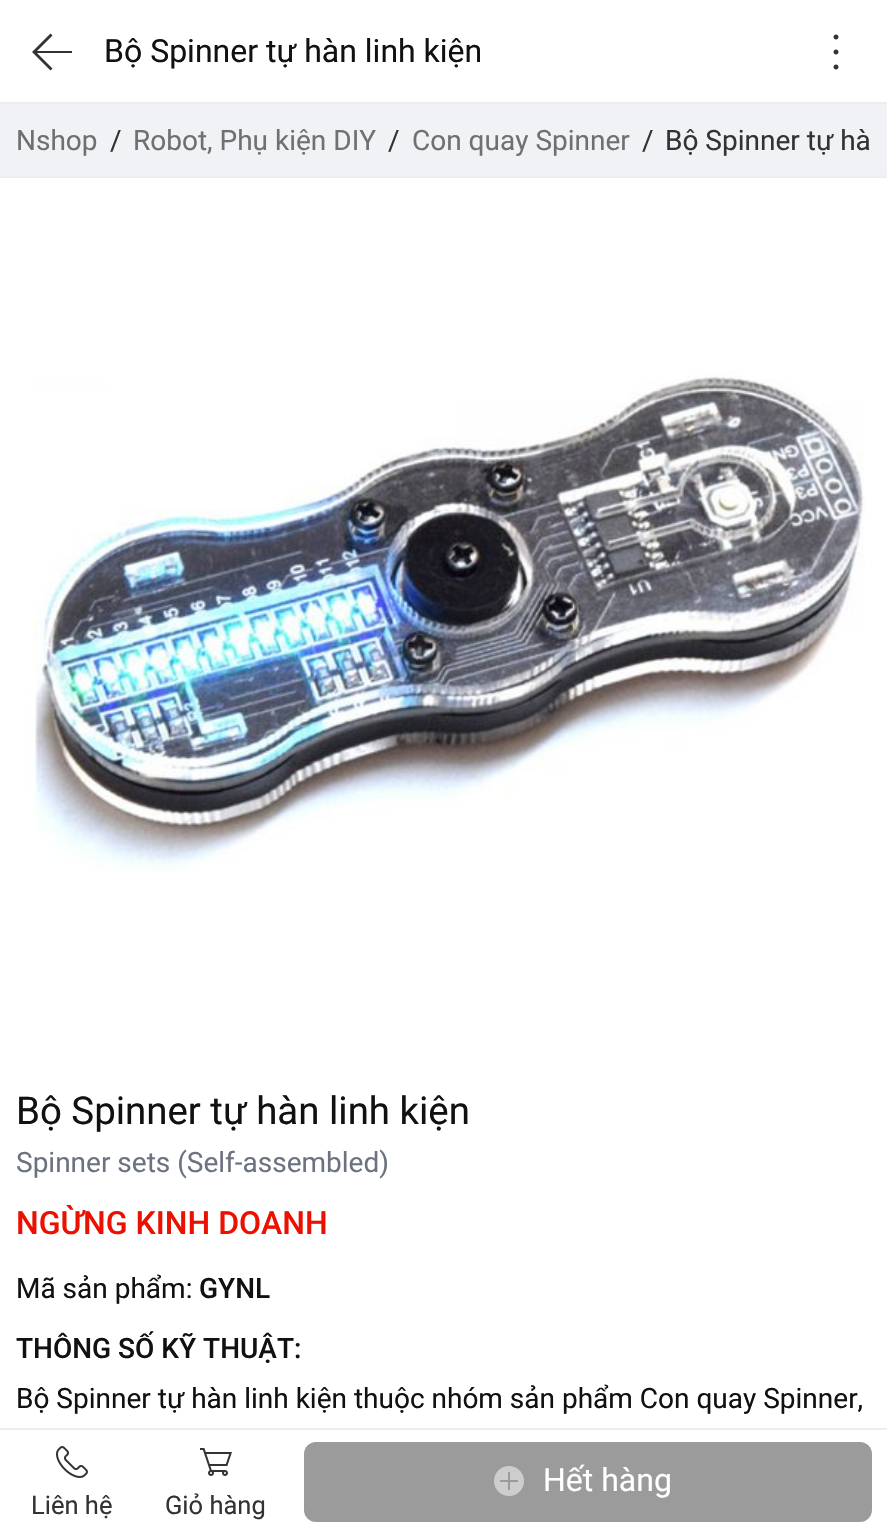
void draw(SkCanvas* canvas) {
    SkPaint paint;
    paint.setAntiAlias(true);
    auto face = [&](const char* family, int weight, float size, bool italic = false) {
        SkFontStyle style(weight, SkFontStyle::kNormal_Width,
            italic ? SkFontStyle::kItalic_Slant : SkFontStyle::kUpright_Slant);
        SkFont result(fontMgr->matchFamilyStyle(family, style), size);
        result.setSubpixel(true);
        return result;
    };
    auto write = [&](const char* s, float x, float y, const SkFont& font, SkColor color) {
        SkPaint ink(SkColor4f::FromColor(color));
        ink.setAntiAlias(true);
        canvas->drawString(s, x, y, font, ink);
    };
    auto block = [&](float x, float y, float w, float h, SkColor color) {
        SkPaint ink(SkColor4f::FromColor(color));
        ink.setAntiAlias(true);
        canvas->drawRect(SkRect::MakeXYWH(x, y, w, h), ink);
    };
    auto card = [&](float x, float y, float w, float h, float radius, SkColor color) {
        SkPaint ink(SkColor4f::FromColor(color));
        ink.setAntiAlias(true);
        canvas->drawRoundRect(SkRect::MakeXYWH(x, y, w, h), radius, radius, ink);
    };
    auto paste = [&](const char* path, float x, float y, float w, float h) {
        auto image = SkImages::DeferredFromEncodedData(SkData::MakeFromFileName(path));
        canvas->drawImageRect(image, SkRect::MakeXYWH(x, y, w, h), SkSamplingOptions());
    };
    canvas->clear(SkColorSetRGB(240, 242, 245));
    block(0, 0, 887, 102, SK_ColorWHITE);
    block(0, 102, 887, 2, SkColorSetRGB(237, 237, 237));
    paint.setColor(SkColorSetRGB(51, 51, 51));
    canvas->drawPath(SkPathBuilder().moveTo(72, 53).lineTo(37, 53).lineTo(52.5f, 68.5f).lineTo(50.5f, 70.5f).lineTo(32, 52).lineTo(50.5f, 33.5f).lineTo(52.5f, 35.5f).lineTo(37, 51).lineTo(72, 51).close().detach(), paint);
    auto kFont1 = face("Roboto", 400, 32);
    write("Bộ Spinner tự hàn linh kiện", 104, 62, kFont1, SkColorSetRGB(17, 17, 17));
    paste("pic1.png", 833, 34, 6, 36);
    auto kFont2 = face("Roboto", 400, 28);
    write("Nshop", 16, 150, kFont2, SkColorSetRGB(112, 112, 112));
    write("/", 110, 150, kFont2, SkColorSetRGB(51, 51, 51));
    write("Robot, Phụ kiện DIY", 133, 150, kFont2, SkColorSetRGB(112, 112, 112));
    write("/", 388, 150, kFont2, SkColorSetRGB(51, 51, 51));
    write("Con quay Spinner", 412, 150, kFont2, SkColorSetRGB(112, 112, 112));
    write("/", 642, 150, kFont2, SkColorSetRGB(51, 51, 51));
    write("Bộ Spinner tự hà", 665, 150, kFont2, SkColorSetRGB(51, 51, 51));
    paint.setColor(SkColorSetARGB(51, 0, 0, 0));
    paint.setMaskFilter(SkMaskFilter::MakeBlur(kNormal_SkBlurStyle, 2));
    canvas->drawRect(SkRect::MakeXYWH(0, 180, 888, 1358), paint);
    paint.setMaskFilter(nullptr);
    block(0, 178, 887, 1250, SK_ColorWHITE);
    paste("pic2.png", 29, 371, 836, 501);
    auto kFont3 = face("Roboto", 400, 38.4f);
    write("Bộ Spinner tự hàn linh kiện", 16, 1124, kFont3, SkColorSetRGB(17, 17, 17));
    write("Spinner sets (Self-assembled)", 16, 1172, kFont2, SkColorSetRGB(107, 114, 128));
    auto kFont4 = face("Roboto", 500, 32);
    write("NGỪNG KINH DOANH", 16, 1234, kFont4, SkColorSetRGB(235, 16, 0));
    write("Mã sản phẩm:", 16, 1298, kFont2, SkColorSetRGB(17, 17, 17));
    auto kFont5 = face("Roboto", 500, 28);
    write("GYNL", 199, 1298, kFont5, SkColorSetRGB(17, 17, 17));
    write("THÔNG SỐ KỸ THUẬT:", 16, 1358, kFont5, SkColorSetRGB(17, 17, 17));
    write("Bộ Spinner tự hàn linh kiện thuộc nhóm sản phẩm Con quay Spinner,", 16, 1408, kFont2, SkColorSetRGB(17, 17, 17));
    block(0, 1430, 887, 102, SK_ColorWHITE);
    block(0, 1428, 887, 2, SkColorSetRGB(237, 237, 237));
    card(304, 1442, 568, 80, 12, SkColorSetRGB(155, 155, 155));
    paste("pic3.png", 494, 1466, 30, 30);
    write("Hết hàng", 543, 1491, kFont1, SK_ColorWHITE);
    paste("pic4.png", 56, 1446, 32, 32);
    auto kFont6 = face("Roboto", 400, 25.5f);
    write("Liên hệ", 31, 1514, kFont6, SkColorSetRGB(51, 51, 51));
    paste("pic5.png", 200, 1448, 32, 28);
    write("Giỏ hàng", 165, 1514, kFont6, SkColorSetRGB(51, 51, 51));
}
